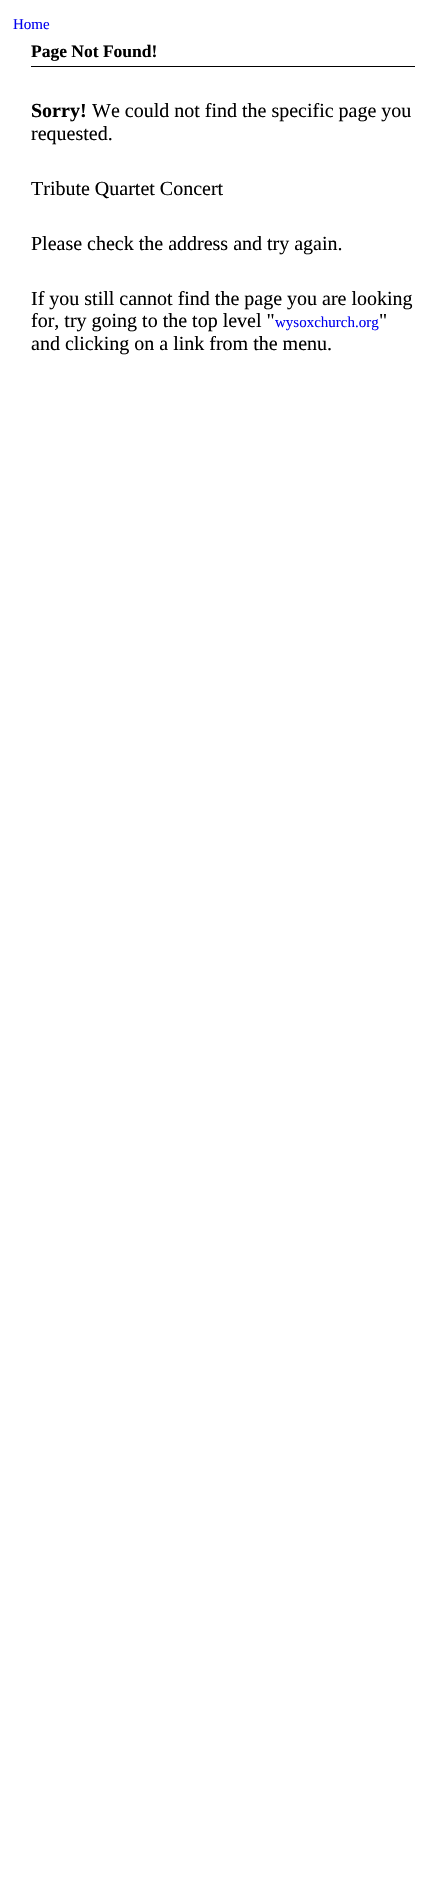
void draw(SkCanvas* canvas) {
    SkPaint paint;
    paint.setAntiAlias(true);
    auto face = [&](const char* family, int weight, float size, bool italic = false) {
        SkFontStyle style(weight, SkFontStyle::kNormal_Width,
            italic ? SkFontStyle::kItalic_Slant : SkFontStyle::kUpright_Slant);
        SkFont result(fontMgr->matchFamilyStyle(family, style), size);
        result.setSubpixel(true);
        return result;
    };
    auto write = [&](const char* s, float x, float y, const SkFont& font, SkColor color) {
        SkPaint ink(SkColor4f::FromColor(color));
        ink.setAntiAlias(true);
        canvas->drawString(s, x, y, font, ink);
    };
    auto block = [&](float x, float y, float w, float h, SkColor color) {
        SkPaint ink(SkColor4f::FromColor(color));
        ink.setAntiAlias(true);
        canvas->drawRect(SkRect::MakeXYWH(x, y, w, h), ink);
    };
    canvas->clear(SK_ColorWHITE);
    auto kFont1 = face("Liberation Serif", 400, 15);
    write("Home", 13, 29, kFont1, SkColorSetRGB(0, 0, 238));
    block(31, 66, 384, 1, SK_ColorBLACK);
    auto kFont2 = face("Liberation Serif", 700, 17.5f);
    write("Page Not Found!", 31, 57, kFont2, SK_ColorBLACK);
    auto kFont3 = face("Liberation Serif", 700, 20);
    write("Sorry!", 31, 117, kFont3, SK_ColorBLACK);
    auto kFont4 = face("Liberation Serif", 400, 20);
    write("We could not find the specific page you", 92, 117, kFont4, SK_ColorBLACK);
    write("requested.", 31, 140, kFont4, SK_ColorBLACK);
    write("Tribute Quartet Concert", 31, 195, kFont4, SK_ColorBLACK);
    write("Please check the address and try again.", 31, 250, kFont4, SK_ColorBLACK);
    write("If you still cannot find the page you are looking", 31, 305, kFont4, SK_ColorBLACK);
    write("for, try going to the top level \"", 31, 327, kFont4, SK_ColorBLACK);
    write("wysoxchurch.org", 275, 327, kFont1, SkColorSetRGB(0, 0, 238));
    write("\"", 379, 327, kFont4, SK_ColorBLACK);
    write("and clicking on a link from the menu.", 31, 350, kFont4, SK_ColorBLACK);
}
